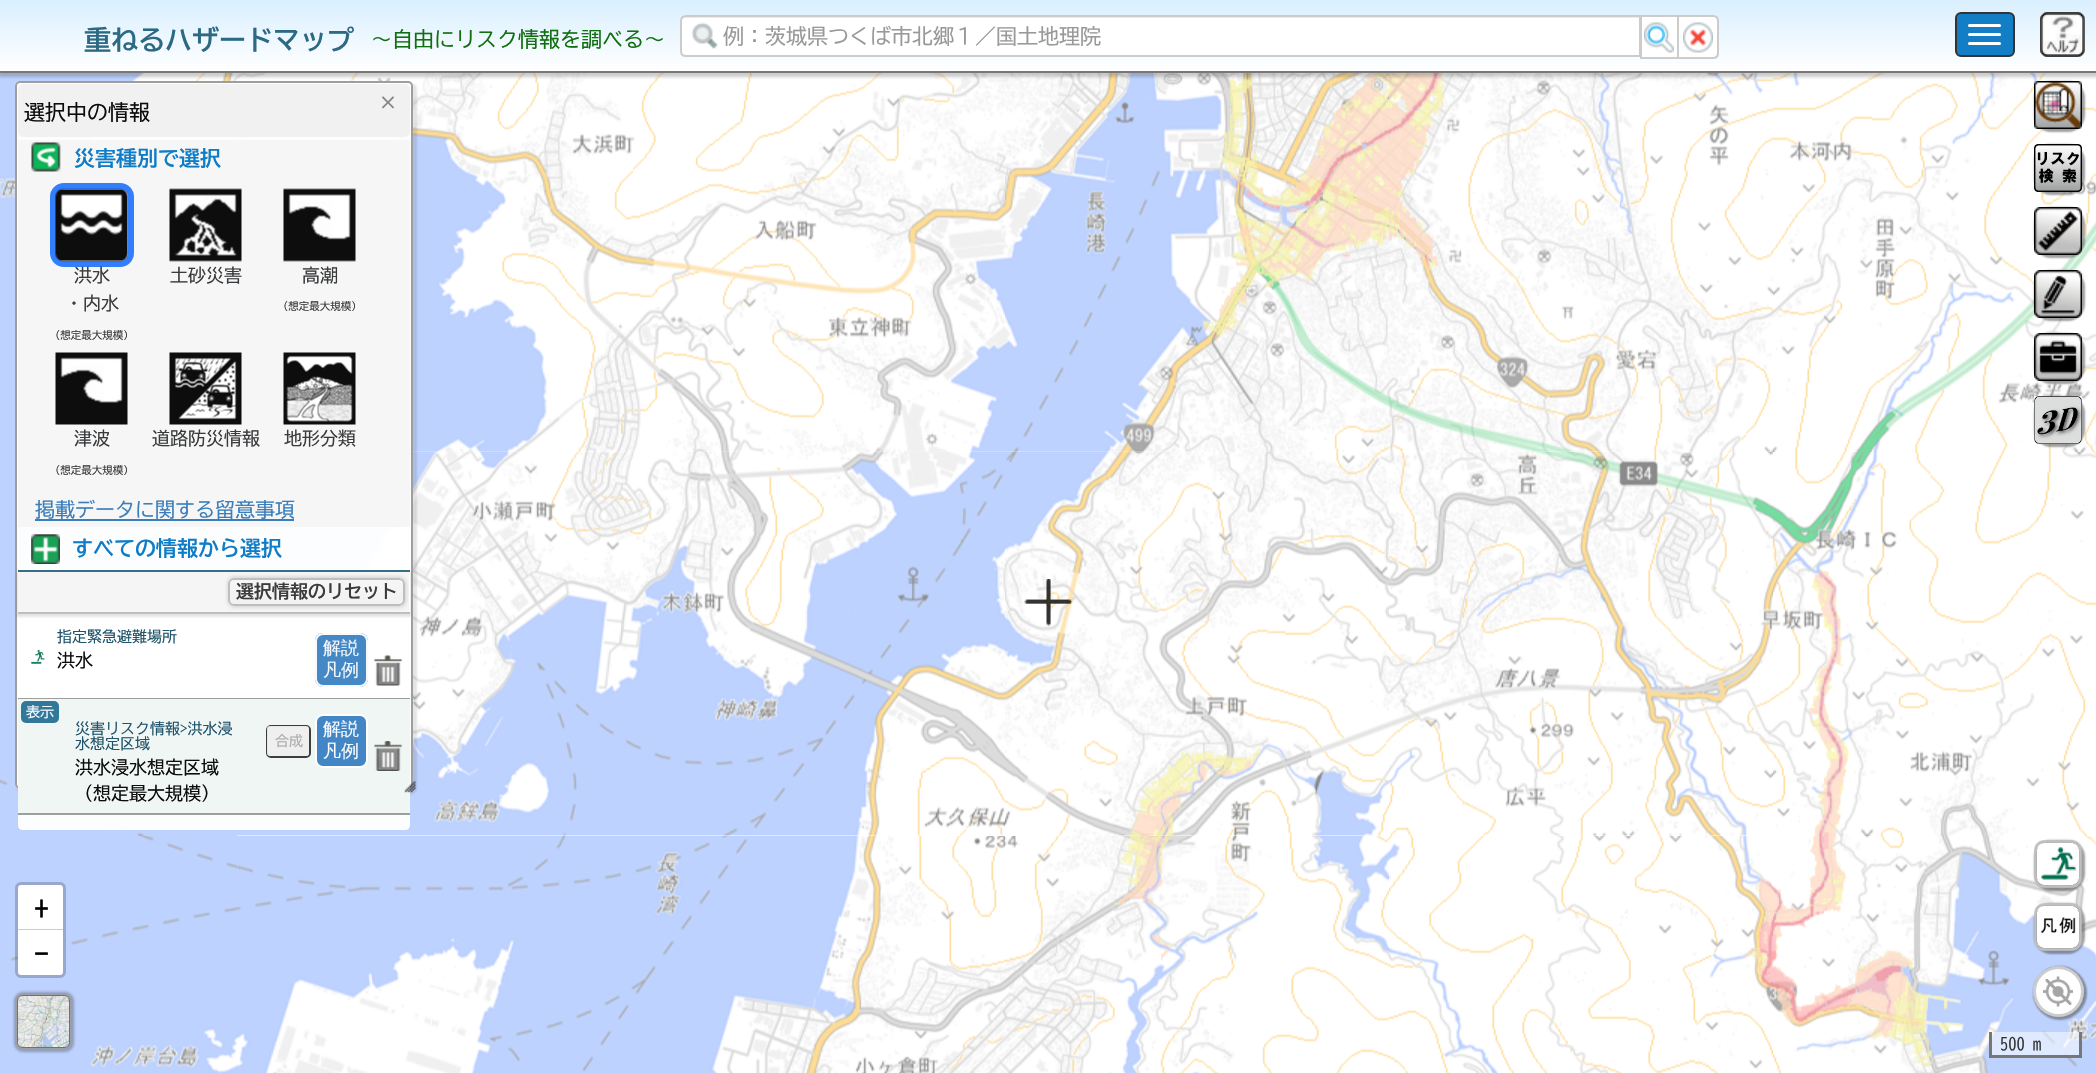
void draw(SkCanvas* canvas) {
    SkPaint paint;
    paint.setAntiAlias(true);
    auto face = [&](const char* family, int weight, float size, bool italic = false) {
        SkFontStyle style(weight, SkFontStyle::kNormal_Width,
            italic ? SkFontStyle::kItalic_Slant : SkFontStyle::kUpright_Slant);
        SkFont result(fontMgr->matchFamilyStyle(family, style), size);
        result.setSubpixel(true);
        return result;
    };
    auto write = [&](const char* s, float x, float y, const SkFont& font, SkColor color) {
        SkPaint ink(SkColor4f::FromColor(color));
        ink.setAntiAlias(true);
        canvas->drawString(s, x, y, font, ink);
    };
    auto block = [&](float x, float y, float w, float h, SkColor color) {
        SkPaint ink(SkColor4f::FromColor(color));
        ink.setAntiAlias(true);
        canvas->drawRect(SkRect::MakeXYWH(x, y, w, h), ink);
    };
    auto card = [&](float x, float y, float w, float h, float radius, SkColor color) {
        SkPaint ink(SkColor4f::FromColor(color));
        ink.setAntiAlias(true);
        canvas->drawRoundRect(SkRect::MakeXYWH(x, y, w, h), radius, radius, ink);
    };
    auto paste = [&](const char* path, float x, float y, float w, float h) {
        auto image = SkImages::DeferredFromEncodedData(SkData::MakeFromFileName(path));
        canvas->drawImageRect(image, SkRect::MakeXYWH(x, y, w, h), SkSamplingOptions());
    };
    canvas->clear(SK_ColorWHITE);
    paste("pic17.png", 0, 73, 237, 379);
    paste("pic24.png", 237, 451, 384, 385);
    paste("pic18.png", 237, 73, 384, 379);
    paste("pic25.png", 621, 451, 384, 385);
    paste("pic19.png", 621, 73, 384, 379);
    paste("pic26.png", 1005, 451, 384, 385);
    paste("pic20.png", 1005, 73, 384, 379);
    paste("pic27.png", 1389, 451, 384, 385);
    paste("pic21.png", 1389, 73, 384, 379);
    paste("pic22.png", 1773, 73, 323, 379);
    paste("pic35.png", 1202, 73, 187, 263);
    paste("pic36.png", 1389, 73, 55, 198);
    paint.setColor(SkColorSetARGB(128, 64, 64, 64));
    paint.setMaskFilter(SkMaskFilter::MakeBlur(kNormal_SkBlurStyle, 1));
    canvas->drawRoundRect(SkRect::MakeXYWH(2034, 81, 51, 51), 17, 17, paint);
    paint.setMaskFilter(nullptr);
    paste("pic43.png", 2034, 81, 48, 48);
    paint.setColor(SkColorSetARGB(51, 0, 0, 0));
    paint.setMaskFilter(SkMaskFilter::MakeBlur(kNormal_SkBlurStyle, 1.5f));
    canvas->drawRect(SkRect::MakeXYWH(-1, 2, 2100, 75), paint);
    paint.setMaskFilter(nullptr);
    block(0, 71, 2096, 2, SkColorSetRGB(119, 119, 119));
    {
        const SkColor colors[] = {SkColorSetRGB(217, 239, 255), SK_ColorWHITE};
        const float stops[] = {0, 1};
        const SkPoint ends[] = {{1049, 0}, {1049, 71}};
        paint.setShader(SkGradientShader::MakeLinear(ends, colors, stops, 2, SkTileMode::kClamp));
        paint.setAlpha(255);
    }
    canvas->drawRect(SkRect::MakeXYWH(0, 0, 2096, 71), paint);
    auto kFont1 = face("BIZ UDGothic", 700, 27);
    write("重ねるハザードマップ", 84, 50, kFont1, SkColorSetRGB(44, 105, 131));
    auto kFont2 = face("BIZ UDGothic", 400, 21);
    write("～自由にリスク情報を調べる～", 371, 47, kFont2, SkColorSetRGB(16, 111, 15));
    paint.setShader(nullptr);
    paint.setColor(SK_ColorWHITE);
    canvas->drawPath(SkPathBuilder().moveTo(686, 15).lineTo(1641, 15).lineTo(1641, 57).lineTo(686, 57).cubicTo(682.5f, 57, 680, 54.5f, 680, 51).lineTo(680, 21).cubicTo(680, 17.5f, 682.5f, 15, 686, 15).close().detach(), paint);
    paste("pic1.png", 691, 22, 27, 27);
    paint.setColor(SkColorSetRGB(236, 236, 236));
    canvas->drawPath(SkPathBuilder().moveTo(686, 18).lineTo(1640, 18).lineTo(1640, 17).lineTo(686, 17).cubicTo(683, 17, 681, 19, 681, 22).cubicTo(681, 20, 683, 18, 686, 18).close().detach(), paint);
    paint.setStyle(SkPaint::kStroke_Style);
    paint.setStrokeWidth(2);
    paint.setColor(SkColorSetRGB(204, 204, 204));
    canvas->drawPath(SkPathBuilder().moveTo(686, 16).lineTo(1640, 16).lineTo(1640, 56).lineTo(686, 56).cubicTo(683, 56, 681, 54, 681, 51).lineTo(681, 21).cubicTo(681, 18, 683, 16, 686, 16).close().detach(), paint);
    write("例：茨城県つくば市北郷１／国土地理院", 723, 44, kFont2, SkColorSetRGB(153, 153, 153));
    paint.setStyle(SkPaint::kFill_Style);
    paint.setColor(SK_ColorWHITE);
    canvas->drawRect(SkRect::MakeXYWH(1641, 16, 37, 42), paint);
    paint.setStyle(SkPaint::kStroke_Style);
    paint.setColor(SkColorSetRGB(204, 204, 204));
    canvas->drawRect(SkRect::MakeXYWH(1641, 16, 37, 42), paint);
    paste("pic2.png", 1644, 22, 30, 31);
    paint.setStyle(SkPaint::kFill_Style);
    paint.setColor(SK_ColorWHITE);
    canvas->drawPath(SkPathBuilder().moveTo(1678, 16).lineTo(1713, 16).cubicTo(1716, 16, 1718, 18, 1718, 21).lineTo(1718, 53).cubicTo(1718, 56, 1716, 58, 1713, 58).lineTo(1678, 58).close().detach(), paint);
    paint.setStyle(SkPaint::kStroke_Style);
    paint.setColor(SkColorSetRGB(204, 204, 204));
    canvas->drawPath(SkPathBuilder().moveTo(1678, 16).lineTo(1713, 16).cubicTo(1716, 16, 1718, 18, 1718, 21).lineTo(1718, 53).cubicTo(1718, 56, 1716, 58, 1713, 58).lineTo(1678, 58).close().detach(), paint);
    paste("pic3.png", 1683, 22, 30, 31);
    paint.setStyle(SkPaint::kFill_Style);
    paint.setColor(SkColorSetRGB(17, 126, 198));
    canvas->drawRoundRect(SkRect::MakeXYWH(1956, 13, 58, 43), 5, 5, paint);
    paint.setStyle(SkPaint::kStroke_Style);
    paint.setColor(SkColorSetRGB(51, 51, 51));
    canvas->drawRoundRect(SkRect::MakeXYWH(1956, 13, 58, 43), 5, 5, paint);
    card(1968, 24, 33, 3, 1.5f, SK_ColorWHITE);
    card(1968, 33, 33, 3, 1.5f, SK_ColorWHITE);
    card(1968, 42, 33, 3, 1.5f, SK_ColorWHITE);
    paste("pic4.png", 2040, 12, 45, 45);
    paste("pic23.png", 0, 452, 237, 384);
    canvas->save();
    canvas->clipPath(SkPathBuilder(SkPathFillType::kEvenOdd).moveTo(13, 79).lineTo(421, 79).lineTo(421, 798).lineTo(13, 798).close().moveTo(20, 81).lineTo(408, 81).cubicTo(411, 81, 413, 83, 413, 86).lineTo(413, 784).cubicTo(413, 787, 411, 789, 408, 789).lineTo(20, 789).cubicTo(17, 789, 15, 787, 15, 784).lineTo(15, 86).cubicTo(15, 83, 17, 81, 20, 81).close().detach(), true);
    paint.setStyle(SkPaint::kFill_Style);
    paint.setColor(SkColorSetARGB(26, 0, 0, 0));
    paint.setMaskFilter(SkMaskFilter::MakeBlur(kNormal_SkBlurStyle, 1));
    canvas->drawRoundRect(SkRect::MakeXYWH(17, 83, 400, 711), 6, 6, paint);
    paint.setMaskFilter(nullptr);
    canvas->restore();
    card(15, 81, 398, 708, 5, SkColorSetARGB(242, 255, 255, 255));
    paint.setStyle(SkPaint::kStroke_Style);
    paint.setColor(SkColorSetARGB(242, 153, 153, 153));
    canvas->drawRoundRect(SkRect::MakeXYWH(16, 82, 396, 706), 4, 4, paint);
    card(18, 84, 392, 53, 5, SkColorSetARGB(242, 240, 240, 240));
    write("選択中の情報", 24, 120, kFont2, SkColorSetRGB(12, 12, 12));
    auto kFont3 = face("BIZ UDGothic", 700, 20);
    write("×", 378, 110, kFont3, SkColorSetRGB(134, 134, 134));
    block(18, 140, 392, 387, SkColorSetARGB(242, 245, 245, 245));
    paste("pic5.png", 31, 142, 30, 30);
    auto kFont4 = face("BIZ UDGothic", 700, 21);
    write("災害種別で選択", 74, 166, kFont4, SkColorSetRGB(14, 124, 198));
    paint.setStrokeWidth(6);
    paint.setColor(SkColorSetRGB(50, 126, 253));
    canvas->drawRoundRect(SkRect::MakeXYWH(53, 186, 78, 78), 11, 11, paint);
    paste("pic6.png", 55, 188, 73, 74);
    auto kFont5 = face("BIZ UDGothic", 400, 18);
    write("洪水", 74, 282, kFont5, SkColorSetRGB(58, 59, 61));
    write("・内水", 65, 310, kFont5, SkColorSetRGB(58, 59, 61));
    auto kFont6 = face("BIZ UDGothic", 400, 10.5f);
    write("(想定最大規模)", 55, 339, kFont6, SkColorSetRGB(58, 59, 61));
    paste("pic7.png", 169, 188, 73, 74);
    write("土砂災害", 170, 282, kFont5, SkColorSetRGB(58, 59, 61));
    paste("pic8.png", 283, 188, 73, 74);
    write("高潮", 302, 282, kFont5, SkColorSetRGB(58, 59, 61));
    write("(想定最大規模)", 283, 310, kFont6, SkColorSetRGB(58, 59, 61));
    paste("pic9.png", 55, 352, 73, 73);
    write("津波", 74, 445, kFont5, SkColorSetRGB(58, 59, 61));
    write("(想定最大規模)", 55, 474, kFont6, SkColorSetRGB(58, 59, 61));
    paste("pic10.png", 169, 352, 73, 73);
    write("道路防災情報", 152, 445, kFont5, SkColorSetRGB(58, 59, 61));
    paste("pic11.png", 283, 352, 73, 73);
    write("地形分類", 284, 445, kFont5, SkColorSetRGB(58, 59, 61));
    auto kFont7 = face("BIZ UDGothic", 400, 20);
    write("掲載データに関する留意事項", 35, 517, kFont7, SkColorSetRGB(58, 126, 187));
    block(35, 519, 259, 2, SkColorSetRGB(58, 126, 187));
    block(18, 570, 392, 2, SkColorSetARGB(242, 44, 105, 131));
    paste("pic12.png", 31, 534, 29, 30);
    write("すべての情報から選択", 72, 556, kFont4, SkColorSetRGB(14, 124, 198));
    block(18, 614, 333, 84, SkColorSetARGB(242, 255, 255, 255));
    canvas->save();
    canvas->clipPath(SkPathBuilder(SkPathFillType::kEvenOdd).moveTo(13, 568).lineTo(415, 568).lineTo(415, 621).lineTo(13, 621).close().moveTo(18, 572).lineTo(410, 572).lineTo(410, 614).lineTo(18, 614).close().detach(), true);
    paint.setStyle(SkPaint::kFill_Style);
    paint.setColor(SkColorSetARGB(26, 0, 0, 0));
    paint.setMaskFilter(SkMaskFilter::MakeBlur(kNormal_SkBlurStyle, 1));
    canvas->drawRect(SkRect::MakeXYWH(17, 572, 394, 45), paint);
    paint.setMaskFilter(nullptr);
    canvas->restore();
    block(18, 572, 391, 40, SkColorSetARGB(242, 244, 244, 244));
    block(18, 612, 392, 2, SkColorSetRGB(190, 190, 190));
    canvas->save();
    canvas->clipPath(SkPathBuilder(SkPathFillType::kEvenOdd).moveTo(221, 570).lineTo(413, 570).lineTo(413, 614).lineTo(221, 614).close().moveTo(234, 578).lineTo(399, 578).cubicTo(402.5f, 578, 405, 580.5f, 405, 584).lineTo(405, 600).cubicTo(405, 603.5f, 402.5f, 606, 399, 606).lineTo(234, 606).cubicTo(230.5f, 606, 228, 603.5f, 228, 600).lineTo(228, 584).cubicTo(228, 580.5f, 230.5f, 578, 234, 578).close().detach(), true);
    paint.setMaskFilter(SkMaskFilter::MakeBlur(kNormal_SkBlurStyle, 1.5f));
    canvas->drawRoundRect(SkRect::MakeXYWH(227, 576, 180, 32), 8, 8, paint);
    paint.setMaskFilter(nullptr);
    canvas->restore();
    canvas->save();
    canvas->clipPath(SkPathBuilder().moveTo(234, 578).lineTo(399, 578).cubicTo(402.5f, 578, 405, 580.5f, 405, 584).lineTo(405, 600).cubicTo(405, 603.5f, 402.5f, 606, 399, 606).lineTo(234, 606).cubicTo(230.5f, 606, 228, 603.5f, 228, 600).lineTo(228, 584).cubicTo(228, 580.5f, 230.5f, 578, 234, 578).close().detach(), true);
    {
        const SkColor colors[] = {SkColorSetRGB(245, 245, 245), SkColorSetRGB(240, 240, 240)};
        const float stops[] = {0, 1};
        const SkPoint ends[] = {{317, 554}, {317, 579}};
        paint.setShader(SkGradientShader::MakeLinear(ends, colors, stops, 2, SkTileMode::kClamp));
        paint.setAlpha(255);
    }
    canvas->drawRect(SkRect::MakeXYWH(228, 578, 177, 1), paint);
    {
        const SkColor colors[] = {SkColorSetARGB(242, 245, 245, 245), SkColorSetARGB(242, 240, 240, 240)};
        const float stops[] = {0, 1};
        const SkPoint ends[] = {{317, 579}, {317, 605}};
        paint.setShader(SkGradientShader::MakeLinear(ends, colors, stops, 2, SkTileMode::kClamp));
        paint.setAlpha(255);
    }
    canvas->drawRect(SkRect::MakeXYWH(228, 579, 177, 26), paint);
    {
        const SkColor colors[] = {SkColorSetARGB(242, 245, 245, 245), SkColorSetARGB(242, 240, 240, 240)};
        const float stops[] = {0, 1};
        const SkPoint ends[] = {{317, 605}, {317, 630}};
        paint.setShader(SkGradientShader::MakeLinear(ends, colors, stops, 2, SkTileMode::kClamp));
        paint.setAlpha(255);
    }
    canvas->drawRect(SkRect::MakeXYWH(228, 605, 177, 1), paint);
    canvas->restore();
    paint.setStyle(SkPaint::kStroke_Style);
    paint.setStrokeWidth(2);
    paint.setShader(nullptr);
    paint.setColor(SkColorSetARGB(242, 187, 187, 187));
    canvas->drawRoundRect(SkRect::MakeXYWH(229, 579, 175, 26), 5, 5, paint);
    auto kFont8 = face("BIZ UDGothic", 700, 18);
    write("選択情報のリセット", 236, 598, kFont8, SkColorSetRGB(58, 59, 61));
    block(18, 698, 392, 1, SkColorSetRGB(158, 158, 158));
    paste("pic13.png", 31, 649, 14, 15);
    auto kFont9 = face("BIZ UDGothic", 400, 15);
    write("指定緊急避難場所", 57, 642, kFont9, SkColorSetRGB(31, 83, 107));
    write("洪水", 57, 667, kFont5, SkColorSetRGB(12, 12, 12));
    card(315, 633, 53, 54, 8, SkColorSetRGB(69, 136, 198));
    paint.setColor(SkColorSetARGB(242, 255, 255, 255));
    canvas->drawRoundRect(SkRect::MakeXYWH(316, 634, 51, 52), 7, 7, paint);
    auto kFont10 = face("WenQuanYi Zen Hei", 500, 18);
    write("解説", 323, 654, kFont10, SkColorSetRGB(246, 249, 252));
    write("凡例", 323, 676, kFont10, SkColorSetRGB(246, 249, 252));
    paste("pic14.png", 374, 655, 29, 31);
    block(18, 699, 392, 116, SkColorSetARGB(242, 255, 255, 255));
    block(18, 813, 392, 2, SkColorSetARGB(242, 153, 153, 153));
    block(18, 699, 392, 114, SkColorSetARGB(242, 239, 246, 242));
    card(21, 701, 38, 22, 5, SkColorSetRGB(50, 120, 155));
    auto kFont11 = face("BIZ UDGothic", 400, 14);
    write("表示", 26, 717, kFont11, SkColorSetRGB(252, 253, 255));
    write("災害リスク情報>洪水浸", 75, 734, kFont9, SkColorSetRGB(31, 83, 107));
    write("水想定区域", 75, 749, kFont9, SkColorSetRGB(31, 83, 107));
    write("洪水浸水想定区域", 75, 774, kFont5, SkColorSetRGB(12, 12, 12));
    write("（想定最大規模）", 75, 800, kFont5, SkColorSetRGB(12, 12, 12));
    paint.setColor(SkColorSetRGB(60, 61, 61));
    canvas->drawRoundRect(SkRect::MakeXYWH(267, 726, 43, 31), 4, 4, paint);
    card(267, 726, 42, 30, 3, SkColorSetARGB(242, 238, 238, 238));
    write("合成", 275, 746, kFont11, SkColorSetRGB(173, 173, 173));
    paint.setStyle(SkPaint::kFill_Style);
    paint.setColor(SkColorSetRGB(66, 134, 198));
    canvas->drawRoundRect(SkRect::MakeXYWH(316, 715, 51, 52), 7, 7, paint);
    paint.setStyle(SkPaint::kStroke_Style);
    paint.setColor(SkColorSetRGB(252, 253, 255));
    canvas->drawRoundRect(SkRect::MakeXYWH(316, 715, 51, 52), 7, 7, paint);
    write("解説", 323, 735, kFont10, SkColorSetRGB(252, 253, 255));
    write("凡例", 323, 757, kFont10, SkColorSetRGB(252, 253, 255));
    paste("pic15.png", 374, 741, 29, 30);
    paint.setStyle(SkPaint::kFill_Style);
    paint.setColor(SkColorSetARGB(242, 255, 255, 255));
    canvas->drawPath(SkPathBuilder().moveTo(18, 815).lineTo(410, 815).lineTo(410, 825).cubicTo(410, 828, 408, 830, 405, 830).lineTo(23, 830).cubicTo(20, 830, 18, 828, 18, 825).close().detach(), paint);
    paste("pic16.png", 404, 781, 12, 12);
    paste("pic28.png", 1773, 452, 323, 384);
    paste("pic29.png", 0, 836, 237, 237);
    paste("pic30.png", 237, 836, 384, 237);
    paste("pic31.png", 621, 836, 384, 237);
    paste("pic32.png", 1005, 836, 384, 237);
    paste("pic33.png", 1389, 836, 384, 237);
    paste("pic34.png", 1773, 836, 323, 237);
    paste("pic37.png", 1129, 748, 133, 88);
    paste("pic38.png", 1808, 569, 42, 267);
    paste("pic39.png", 1114, 836, 58, 125);
    paste("pic40.png", 1743, 877, 30, 113);
    paste("pic41.png", 1773, 836, 191, 231);
    paste("pic42.png", 1024, 579, 49, 47);
    paint.setColor(SkColorSetARGB(128, 64, 64, 64));
    paint.setMaskFilter(SkMaskFilter::MakeBlur(kNormal_SkBlurStyle, 1));
    canvas->drawRoundRect(SkRect::MakeXYWH(2034, 144, 51, 51), 17, 17, paint);
    paint.setMaskFilter(nullptr);
    paste("pic44.png", 2034, 144, 48, 48);
    paint.setMaskFilter(SkMaskFilter::MakeBlur(kNormal_SkBlurStyle, 1));
    canvas->drawRoundRect(SkRect::MakeXYWH(2034, 207, 51, 51), 17, 17, paint);
    paint.setMaskFilter(nullptr);
    paste("pic45.png", 2034, 207, 48, 48);
    paint.setMaskFilter(SkMaskFilter::MakeBlur(kNormal_SkBlurStyle, 1));
    canvas->drawRoundRect(SkRect::MakeXYWH(2034, 270, 51, 51), 17, 17, paint);
    paint.setMaskFilter(nullptr);
    paste("pic46.png", 2034, 270, 48, 48);
    paint.setMaskFilter(SkMaskFilter::MakeBlur(kNormal_SkBlurStyle, 1));
    canvas->drawRoundRect(SkRect::MakeXYWH(2034, 333, 51, 51), 17, 17, paint);
    paint.setMaskFilter(nullptr);
    paste("pic47.png", 2034, 333, 48, 48);
    paint.setMaskFilter(SkMaskFilter::MakeBlur(kNormal_SkBlurStyle, 1));
    canvas->drawRoundRect(SkRect::MakeXYWH(2034, 396, 51, 51), 17, 17, paint);
    paint.setMaskFilter(nullptr);
    paste("pic48.png", 2034, 396, 48, 48);
    paint.setStyle(SkPaint::kStroke_Style);
    paint.setStrokeWidth(3);
    paint.setColor(SkColorSetARGB(51, 0, 0, 0));
    canvas->drawRoundRect(SkRect::MakeXYWH(16.5f, 883.5f, 48, 93), 4.5f, 4.5f, paint);
    paint.setStyle(SkPaint::kFill_Style);
    paint.setColor(SK_ColorWHITE);
    canvas->drawPath(SkPathBuilder().moveTo(21, 885).lineTo(60, 885).cubicTo(61.5f, 885, 63, 886.5f, 63, 888).lineTo(63, 930).lineTo(18, 930).lineTo(18, 888).cubicTo(18, 886.5f, 19.5f, 885, 21, 885).close().detach(), paint);
    block(18, 929, 45, 1, SkColorSetRGB(204, 204, 204));
    auto kFont12 = face("BIZ UDGothic", 700, 30);
    write("+", 34, 920, kFont12, SK_ColorBLACK);
    canvas->drawPath(SkPathBuilder().moveTo(18, 930).lineTo(63, 930).lineTo(63, 972).cubicTo(63, 973.5f, 61.5f, 975, 60, 975).lineTo(21, 975).cubicTo(19.5f, 975, 18, 973.5f, 18, 972).close().detach(), paint);
    write("−", 34, 965, kFont12, SK_ColorBLACK);
    paint.setColor(SkColorSetARGB(77, 19, 21, 26));
    paint.setMaskFilter(SkMaskFilter::MakeBlur(kNormal_SkBlurStyle, 1.5f));
    canvas->drawRoundRect(SkRect::MakeXYWH(14, 992, 60, 60), 9, 9, paint);
    paint.setMaskFilter(nullptr);
    paint.setColor(SkColorSetRGB(111, 113, 117));
    canvas->drawRoundRect(SkRect::MakeXYWH(16, 994, 55, 55), 7, 7, paint);
    paint.setStyle(SkPaint::kStroke_Style);
    paint.setStrokeWidth(2);
    paint.setColor(SkColorSetRGB(157, 159, 163));
    canvas->drawRoundRect(SkRect::MakeXYWH(16, 994, 55, 55), 7, 7, paint);
    paste("pic49.png", 18, 996, 51, 51);
    paint.setStyle(SkPaint::kFill_Style);
    paint.setColor(SkColorSetARGB(128, 64, 64, 64));
    paint.setMaskFilter(SkMaskFilter::MakeBlur(kNormal_SkBlurStyle, 1));
    canvas->drawRoundRect(SkRect::MakeXYWH(2034, 840, 51, 51), 17, 17, paint);
    paint.setMaskFilter(nullptr);
    paste("pic50.png", 2034, 840, 48, 48);
    paint.setMaskFilter(SkMaskFilter::MakeBlur(kNormal_SkBlurStyle, 1));
    canvas->drawRoundRect(SkRect::MakeXYWH(2034, 903, 51, 51), 17, 17, paint);
    paint.setMaskFilter(nullptr);
    paste("pic51.png", 2034, 903, 48, 48);
    paint.setMaskFilter(SkMaskFilter::MakeBlur(kNormal_SkBlurStyle, 1));
    canvas->drawRoundRect(SkRect::MakeXYWH(2033, 966, 54, 54), 27, 27, paint);
    paint.setMaskFilter(nullptr);
    paint.setColor(SK_ColorWHITE);
    canvas->drawCircle(2058.5f, 991.5f, 25.5f, paint);
    paint.setStyle(SkPaint::kStroke_Style);
    paint.setStrokeWidth(3);
    paint.setColor(SkColorSetARGB(51, 0, 0, 0));
    canvas->drawCircle(2058.5f, 991.5f, 24, paint);
    paste("pic52.png", 2043, 976, 30, 31);
    block(1992, 1032, 87, 23, SkColorSetARGB(128, 255, 255, 255));
    block(2079, 1032, 3, 26, SkColorSetRGB(119, 119, 119));
    block(1989, 1055, 93, 3, SkColorSetRGB(119, 119, 119));
    block(1989, 1032, 3, 26, SkColorSetRGB(119, 119, 119));
    auto kFont13 = face("BIZ UDGothic", 400, 16.5f);
    write("500 m", 2000, 1050, kFont13, SkColorSetRGB(51, 51, 51));
}
